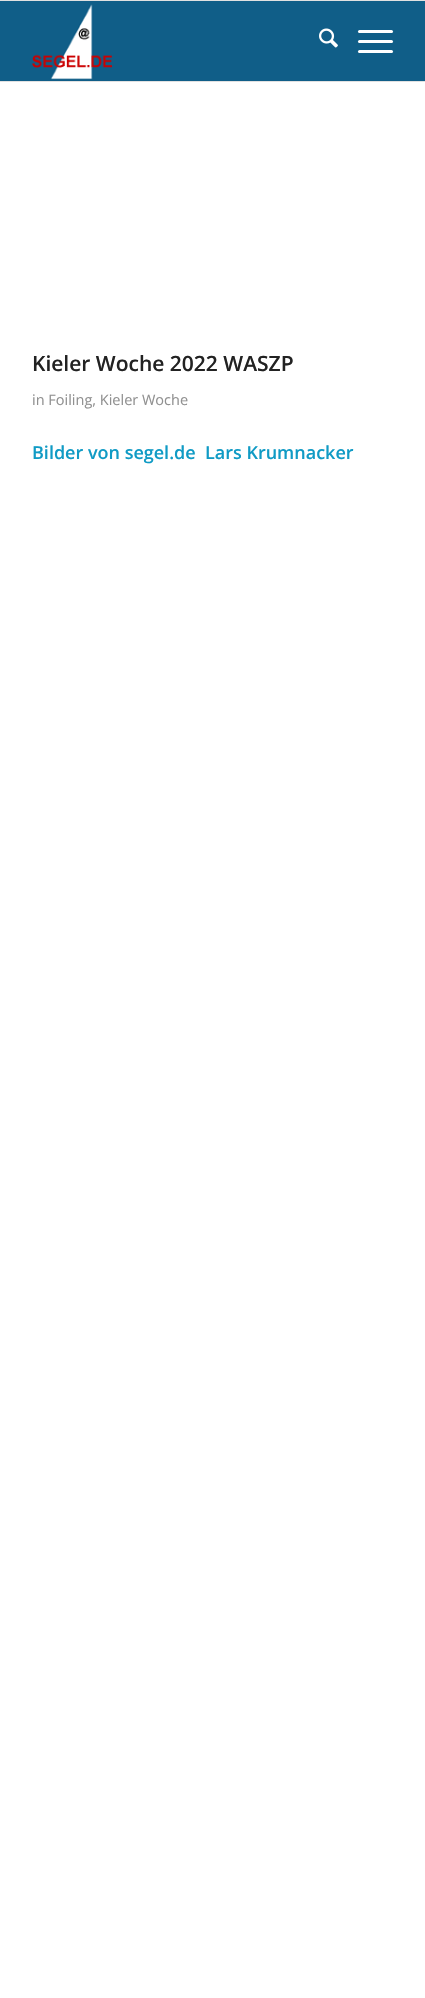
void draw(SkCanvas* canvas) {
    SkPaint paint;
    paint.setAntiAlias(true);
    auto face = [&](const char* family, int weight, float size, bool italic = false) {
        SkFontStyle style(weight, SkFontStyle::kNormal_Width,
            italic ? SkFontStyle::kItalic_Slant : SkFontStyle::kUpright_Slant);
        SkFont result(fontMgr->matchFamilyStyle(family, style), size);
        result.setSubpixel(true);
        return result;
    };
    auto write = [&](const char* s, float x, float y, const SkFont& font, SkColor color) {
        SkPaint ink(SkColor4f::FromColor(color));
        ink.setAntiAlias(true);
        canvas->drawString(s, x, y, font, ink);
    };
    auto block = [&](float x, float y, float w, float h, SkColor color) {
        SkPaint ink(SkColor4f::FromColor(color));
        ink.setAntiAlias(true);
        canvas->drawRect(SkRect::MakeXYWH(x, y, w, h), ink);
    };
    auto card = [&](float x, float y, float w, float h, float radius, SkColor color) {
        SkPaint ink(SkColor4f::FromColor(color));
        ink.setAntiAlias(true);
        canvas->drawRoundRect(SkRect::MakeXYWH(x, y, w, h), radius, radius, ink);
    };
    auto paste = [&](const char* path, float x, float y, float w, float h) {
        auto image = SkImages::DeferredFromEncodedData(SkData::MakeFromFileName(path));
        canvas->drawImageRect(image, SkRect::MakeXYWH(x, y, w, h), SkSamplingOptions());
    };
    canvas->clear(SK_ColorWHITE);
    block(0, 0, 425, 1, SkColorSetRGB(225, 225, 225));
    block(0, 81, 425, 1, SkColorSetRGB(225, 225, 225));
    block(0, 1, 425, 80, SkColorSetRGB(16, 94, 136));
    paste("pic1.png", 32, 4, 80, 76);
    paste("pic2.png", 319, 28, 19, 20);
    card(358, 40, 35, 3, 1.5f, SK_ColorWHITE);
    card(358, 30, 35, 3, 1.5f, SK_ColorWHITE);
    card(358, 50, 35, 3, 1.5f, SK_ColorWHITE);
    auto kFont1 = face("Open Sans", 600, 21);
    write("Kieler Woche 2022 WASZP", 32, 371, kFont1, SkColorSetRGB(34, 34, 34));
    auto kFont2 = face("Open Sans", 400, 14.5f);
    write("in Foiling, Kieler Woche", 32, 405, kFont2, SkColorSetRGB(145, 145, 145));
    auto kFont3 = face("Open Sans", 600, 18);
    write("Bilder von segel.de  Lars Krumnacker", 32, 459, kFont3, SkColorSetRGB(16, 155, 197));
}
